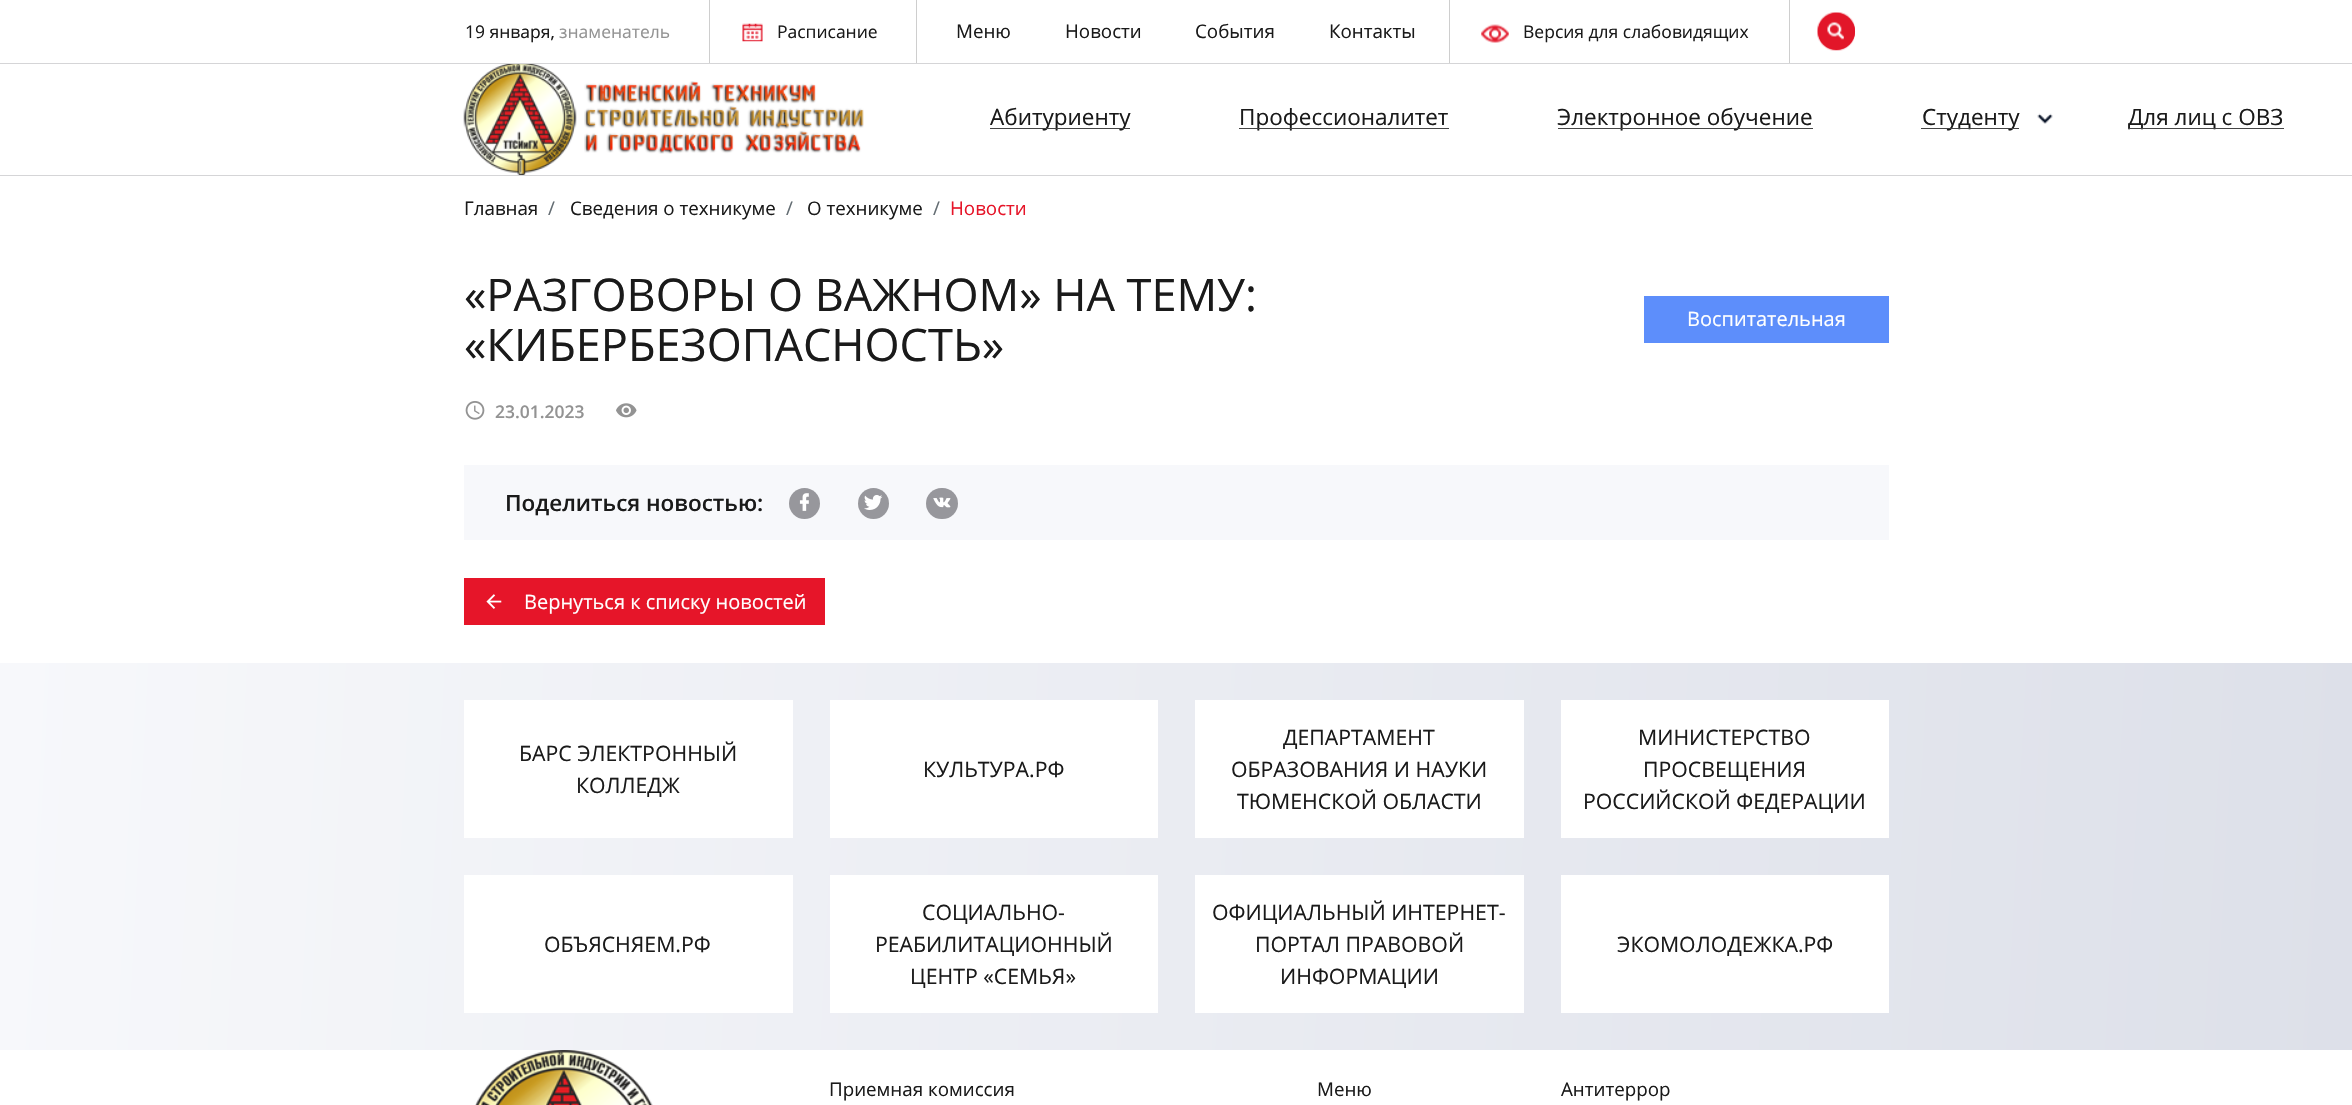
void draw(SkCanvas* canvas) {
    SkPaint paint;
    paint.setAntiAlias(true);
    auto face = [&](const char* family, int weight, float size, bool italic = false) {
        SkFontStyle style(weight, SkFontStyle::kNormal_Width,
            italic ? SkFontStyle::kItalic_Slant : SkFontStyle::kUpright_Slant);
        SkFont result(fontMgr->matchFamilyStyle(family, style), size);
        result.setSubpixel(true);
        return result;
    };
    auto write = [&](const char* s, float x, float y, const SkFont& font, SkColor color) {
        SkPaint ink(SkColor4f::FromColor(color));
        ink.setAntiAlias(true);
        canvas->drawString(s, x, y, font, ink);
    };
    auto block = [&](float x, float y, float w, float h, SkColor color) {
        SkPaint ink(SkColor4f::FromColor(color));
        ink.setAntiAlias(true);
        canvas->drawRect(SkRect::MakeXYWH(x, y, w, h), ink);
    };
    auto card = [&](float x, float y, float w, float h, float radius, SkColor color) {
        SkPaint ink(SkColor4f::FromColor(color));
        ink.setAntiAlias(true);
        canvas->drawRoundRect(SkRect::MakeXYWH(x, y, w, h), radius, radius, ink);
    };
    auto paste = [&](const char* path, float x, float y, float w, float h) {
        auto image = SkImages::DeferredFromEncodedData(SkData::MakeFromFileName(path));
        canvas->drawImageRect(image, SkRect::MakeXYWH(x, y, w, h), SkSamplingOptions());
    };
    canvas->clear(SK_ColorWHITE);
    block(0, 63, 2352, 1, SkColorSetRGB(213, 213, 215));
    auto kFont1 = face("Open Sans", 400, 17.5f);
    write("19 января,", 465, 38, kFont1, SkColorSetRGB(26, 26, 26));
    write("знаменатель", 559, 38, kFont1, SkColorSetRGB(147, 147, 147));
    block(916, 0, 1, 63, SkColorSetRGB(206, 206, 206));
    block(709, 0, 1, 63, SkColorSetRGB(206, 206, 206));
    paste("pic1.png", 742, 23, 21, 19);
    write("Расписание", 777, 38, kFont1, SkColorSetRGB(26, 26, 26));
    auto kFont2 = face("Open Sans", 400, 18.75f);
    write("Меню", 956, 38, kFont2, SkColorSetRGB(26, 26, 26));
    write("Новости", 1065, 38, kFont2, SkColorSetRGB(26, 26, 26));
    write("События", 1195, 38, kFont2, SkColorSetRGB(26, 26, 26));
    write("Контакты", 1329, 38, kFont2, SkColorSetRGB(26, 26, 26));
    block(1789, 0, 1, 63, SkColorSetRGB(206, 206, 206));
    block(1449, 0, 1, 63, SkColorSetRGB(206, 206, 206));
    paste("pic2.png", 1481, 24, 28, 19);
    write("Версия для слабовидящих", 1523, 38, kFont1, SkColorSetRGB(26, 26, 26));
    paint.setColor(SkColorSetRGB(230, 21, 41));
    canvas->drawCircle(1836.5f, 31.5f, 18.5f, paint);
    paste("pic3.png", 1817, 12, 38, 39);
    block(0, 175, 2352, 1, SkColorSetRGB(213, 213, 215));
    paste("pic4.png", 463, 64, 114, 111);
    paste("pic5.png", 584, 81, 280, 73);
    auto kFont3 = face("Open Sans", 400, 22.5f);
    write("Абитуриенту", 990, 125, kFont3, SkColorSetRGB(26, 26, 26));
    block(990, 128, 140, 1, SkColorSetRGB(68, 68, 68));
    write("Профессионалитет", 1239, 125, kFont3, SkColorSetRGB(26, 26, 26));
    block(1239, 128, 210, 1, SkColorSetRGB(68, 68, 68));
    write("Электронное обучение", 1557, 125, kFont3, SkColorSetRGB(26, 26, 26));
    block(1558, 128, 255, 1, SkColorSetRGB(68, 68, 68));
    write("Студенту", 1922, 125, kFont3, SkColorSetRGB(26, 26, 26));
    paste("pic6.png", 2037, 113, 16, 11);
    block(1921, 128, 98, 1, SkColorSetRGB(68, 68, 68));
    write("Для лиц с ОВЗ", 2128, 125, kFont3, SkColorSetRGB(26, 26, 26));
    block(2128, 128, 156, 1, SkColorSetRGB(68, 68, 68));
    write("Главная", 464, 215, kFont2, SkColorSetRGB(26, 26, 26));
    write("/", 548, 215, kFont2, SkColorSetRGB(99, 108, 114));
    write("Сведения о техникуме", 570, 215, kFont2, SkColorSetRGB(26, 26, 26));
    write("/", 786, 215, kFont2, SkColorSetRGB(99, 108, 114));
    write("О техникуме", 807, 215, kFont2, SkColorSetRGB(26, 26, 26));
    write("/", 933, 215, kFont2, SkColorSetRGB(99, 108, 114));
    write("Новости", 950, 215, kFont2, SkColorSetRGB(230, 21, 41));
    auto kFont4 = face("Open Sans", 400, 45);
    write("«РАЗГОВОРЫ О ВАЖНОМ» НА ТЕМУ:", 464, 311, kFont4, SkColorSetRGB(26, 26, 26));
    write("«КИБЕРБЕЗОПАСНОСТЬ»", 464, 361, kFont4, SkColorSetRGB(26, 26, 26));
    block(1644, 296, 245, 47, SkColorSetRGB(93, 142, 251));
    auto kFont5 = face("Open Sans", 400, 20);
    write("Воспитательная", 1687, 326, kFont5, SK_ColorWHITE);
    paste("pic7.png", 465, 401, 20, 19);
    auto kFont6 = face("Open Sans", 600, 17.5f);
    write("23.01.2023", 495, 418, kFont6, SkColorSetRGB(147, 147, 147));
    paste("pic8.png", 616, 403, 21, 15);
    block(464, 465, 1425, 75, SkColorSetRGB(247, 248, 251));
    auto kFont7 = face("Open Sans", 600, 22.5f);
    write("Поделиться новостью:", 505, 511, kFont7, SkColorSetRGB(26, 26, 26));
    paint.setColor(SkColorSetRGB(151, 151, 156));
    canvas->drawCircle(804.5f, 503.5f, 15.5f, paint);
    paste("pic9.png", 799, 493, 10, 18);
    canvas->drawCircle(873.5f, 503.5f, 15.5f, paint);
    paste("pic10.png", 864, 495, 19, 15);
    card(926, 488, 32, 31, 15.5f, SkColorSetRGB(151, 151, 156));
    paste("pic11.png", 933, 497, 18, 11);
    block(464, 578, 361, 47, SkColorSetRGB(230, 21, 41));
    paste("pic12.png", 486, 594, 16, 15);
    write("Вернуться к списку новостей", 524, 609, kFont5, SK_ColorWHITE);
    {
        const SkColor colors[] = {SkColorSetRGB(221, 224, 233), SkColorSetRGB(247, 248, 251)};
        const float stops[] = {0, 1};
        const SkPoint ends[] = {{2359, 918}, {-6.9f, 794}};
        paint.setShader(SkGradientShader::MakeLinear(ends, colors, stops, 2, SkTileMode::kClamp));
        paint.setAlpha(255);
    }
    canvas->drawRect(SkRect::MakeXYWH(0, 663, 2352, 387), paint);
    block(464, 700, 329, 138, SK_ColorWHITE);
    auto kFont8 = face("Open Sans", 400, 21.25f);
    write("БАРС ЭЛЕКТРОННЫЙ", 519, 761, kFont8, SkColorSetRGB(26, 26, 26));
    write("КОЛЛЕДЖ", 576, 793, kFont8, SkColorSetRGB(26, 26, 26));
    block(830, 700, 328, 138, SK_ColorWHITE);
    write("КУЛЬТУРА.РФ", 923, 777, kFont8, SkColorSetRGB(26, 26, 26));
    block(1195, 700, 329, 138, SK_ColorWHITE);
    write("ДЕПАРТАМЕНТ", 1283, 745, kFont8, SkColorSetRGB(26, 26, 26));
    write("ОБРАЗОВАНИЯ И НАУКИ", 1231, 777, kFont8, SkColorSetRGB(26, 26, 26));
    write("ТЮМЕНСКОЙ ОБЛАСТИ", 1237, 809, kFont8, SkColorSetRGB(26, 26, 26));
    block(1561, 700, 328, 138, SK_ColorWHITE);
    write("МИНИСТЕРСТВО", 1638, 745, kFont8, SkColorSetRGB(26, 26, 26));
    write("ПРОСВЕЩЕНИЯ", 1643, 777, kFont8, SkColorSetRGB(26, 26, 26));
    write("РОССИЙСКОЙ ФЕДЕРАЦИИ", 1583, 809, kFont8, SkColorSetRGB(26, 26, 26));
    block(464, 875, 329, 138, SK_ColorWHITE);
    write("ОБЪЯСНЯЕМ.РФ", 544, 952, kFont8, SkColorSetRGB(26, 26, 26));
    block(830, 875, 328, 138, SK_ColorWHITE);
    write("СОЦИАЛЬНО-", 922, 920, kFont8, SkColorSetRGB(26, 26, 26));
    write("РЕАБИЛИТАЦИОННЫЙ", 875, 952, kFont8, SkColorSetRGB(26, 26, 26));
    write("ЦЕНТР «СЕМЬЯ»", 910, 984, kFont8, SkColorSetRGB(26, 26, 26));
    block(1195, 875, 329, 138, SK_ColorWHITE);
    write("ОФИЦИАЛЬНЫЙ ИНТЕРНЕТ-", 1212, 920, kFont8, SkColorSetRGB(26, 26, 26));
    write("ПОРТАЛ ПРАВОВОЙ", 1255, 952, kFont8, SkColorSetRGB(26, 26, 26));
    write("ИНФОРМАЦИИ", 1280, 984, kFont8, SkColorSetRGB(26, 26, 26));
    block(1561, 875, 328, 138, SK_ColorWHITE);
    write("ЭКОМОЛОДЕЖКА.РФ", 1617, 952, kFont8, SkColorSetRGB(26, 26, 26));
    paste("pic13.png", 475, 1050, 178, 55);
    write("Приемная комиссия", 829, 1096, kFont2, SkColorSetRGB(26, 26, 26));
    write("Меню", 1317, 1096, kFont2, SkColorSetRGB(26, 26, 26));
    write("Антитеррор", 1561, 1096, kFont2, SkColorSetRGB(26, 26, 26));
}
